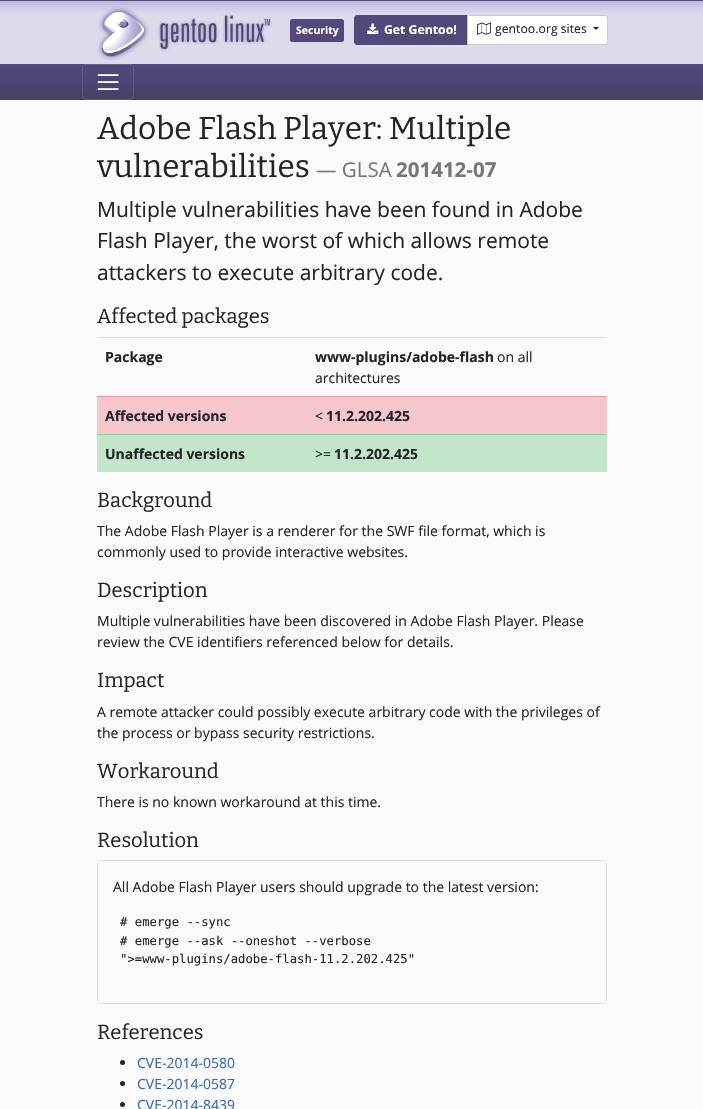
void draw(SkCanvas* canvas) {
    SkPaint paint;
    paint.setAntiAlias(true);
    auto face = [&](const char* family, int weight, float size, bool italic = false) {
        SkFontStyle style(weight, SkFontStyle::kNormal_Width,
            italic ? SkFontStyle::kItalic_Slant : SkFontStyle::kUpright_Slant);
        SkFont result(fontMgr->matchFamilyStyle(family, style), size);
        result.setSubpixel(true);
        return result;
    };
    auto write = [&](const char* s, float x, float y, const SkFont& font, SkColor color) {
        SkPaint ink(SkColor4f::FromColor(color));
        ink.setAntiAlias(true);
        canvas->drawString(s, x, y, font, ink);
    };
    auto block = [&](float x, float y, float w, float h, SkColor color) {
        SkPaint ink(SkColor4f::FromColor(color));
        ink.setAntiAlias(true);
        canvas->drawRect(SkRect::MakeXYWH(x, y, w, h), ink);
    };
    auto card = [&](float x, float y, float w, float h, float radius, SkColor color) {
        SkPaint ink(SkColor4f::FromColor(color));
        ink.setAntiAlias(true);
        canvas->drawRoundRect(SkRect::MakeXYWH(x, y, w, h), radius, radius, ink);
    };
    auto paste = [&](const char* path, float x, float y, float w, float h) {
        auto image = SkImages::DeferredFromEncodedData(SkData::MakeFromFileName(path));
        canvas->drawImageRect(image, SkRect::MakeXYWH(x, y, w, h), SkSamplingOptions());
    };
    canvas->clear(SkColorSetRGB(250, 250, 250));
    block(0, 0, 703, 1, SkColorSetRGB(84, 72, 122));
    {
        const SkColor colors[] = {SkColorSetRGB(190, 184, 219), SkColorSetRGB(221, 218, 236)};
        const float stops[] = {0, 0.2f};
        const SkPoint ends[] = {{352, 1}, {352, 64}};
        paint.setShader(SkGradientShader::MakeLinear(ends, colors, stops, 2, SkTileMode::kClamp));
        paint.setAlpha(255);
    }
    canvas->drawRect(SkRect::MakeXYWH(0, 1, 703, 63), paint);
    paste("pic1.png", 97, 7, 175, 53);
    card(290, 19, 54, 23, 2.5f, SkColorSetRGB(84, 72, 122));
    auto kFont1 = face("Open Sans", 700, 10.5f);
    write("Security", 296, 34, kFont1, SK_ColorWHITE);
    paint.setShader(nullptr);
    paint.setColor(SkColorSetRGB(84, 72, 122));
    canvas->drawPath(SkPathBuilder().moveTo(357, 15.5f).lineTo(467.5f, 15.5f).lineTo(467.5f, 44.5f).lineTo(357, 44.5f).cubicTo(355.5f, 44.5f, 354.5f, 43.5f, 354.5f, 42).lineTo(354.5f, 18).cubicTo(354.5f, 16.5f, 355.5f, 15.5f, 357, 15.5f).close().detach(), paint);
    paint.setStyle(SkPaint::kStroke_Style);
    paint.setStrokeWidth(1);
    canvas->drawPath(SkPathBuilder().moveTo(357, 15.5f).lineTo(467.5f, 15.5f).lineTo(467.5f, 44.5f).lineTo(357, 44.5f).cubicTo(355.5f, 44.5f, 354.5f, 43.5f, 354.5f, 42).lineTo(354.5f, 18).cubicTo(354.5f, 16.5f, 355.5f, 15.5f, 357, 15.5f).close().detach(), paint);
    paste("pic2.png", 367, 23, 12, 11);
    auto kFont2 = face("Open Sans", 700, 12.25f);
    write("Get Gentoo!", 384, 34, kFont2, SK_ColorWHITE);
    paint.setStyle(SkPaint::kFill_Style);
    paint.setColor(SK_ColorWHITE);
    canvas->drawPath(SkPathBuilder().moveTo(467.5f, 15.5f).lineTo(605, 15.5f).cubicTo(606.5f, 15.5f, 607.5f, 16.5f, 607.5f, 18).lineTo(607.5f, 42).cubicTo(607.5f, 43.5f, 606.5f, 44.5f, 605, 44.5f).lineTo(467.5f, 44.5f).close().detach(), paint);
    paint.setStyle(SkPaint::kStroke_Style);
    paint.setColor(SkColorSetRGB(204, 204, 204));
    canvas->drawPath(SkPathBuilder().moveTo(467.5f, 15.5f).lineTo(605, 15.5f).cubicTo(606.5f, 15.5f, 607.5f, 16.5f, 607.5f, 18).lineTo(607.5f, 42).cubicTo(607.5f, 43.5f, 606.5f, 44.5f, 605, 44.5f).lineTo(467.5f, 44.5f).close().detach(), paint);
    paste("pic3.png", 477, 22, 14, 13);
    auto kFont3 = face("Open Sans", 400, 12.25f);
    write("gentoo.org sites", 495, 33, kFont3, SkColorSetRGB(33, 37, 41));
    paint.setStyle(SkPaint::kFill_Style);
    paint.setColor(SkColorSetRGB(33, 37, 41));
    canvas->drawPath(SkPathBuilder().moveTo(593, 27).lineTo(599, 27).lineTo(596, 30).close().detach(), paint);
    {
        const SkColor colors[] = {SkColorSetRGB(84, 72, 122), SkColorSetRGB(73, 63, 106)};
        const float stops[] = {0, 1};
        const SkPoint ends[] = {{352, 64}, {352, 100}};
        paint.setShader(SkGradientShader::MakeLinear(ends, colors, stops, 2, SkTileMode::kClamp));
        paint.setAlpha(255);
    }
    canvas->drawRect(SkRect::MakeXYWH(0, 64, 703, 36), paint);
    paint.setStyle(SkPaint::kStroke_Style);
    paint.setShader(nullptr);
    paint.setColor(SkColorSetARGB(26, 255, 255, 255));
    canvas->drawRoundRect(SkRect::MakeXYWH(82.5f, 64.5f, 51, 35), 3.5f, 3.5f, paint);
    paste("pic4.png", 97, 74, 22, 16);
    auto kFont4 = face("Bitter", 400, 31.5f);
    write("Adobe Flash Player: Multiple", 97, 139, kFont4, SkColorSetRGB(33, 37, 41));
    write("vulnerabilities", 97, 177, kFont4, SkColorSetRGB(33, 37, 41));
    auto kFont5 = face("Open Sans", 400, 20.5f);
    write("— GLSA", 316, 177, kFont5, SkColorSetRGB(119, 119, 119));
    auto kFont6 = face("Open Sans", 700, 20.5f);
    write("201412-07", 396, 177, kFont6, SkColorSetRGB(119, 119, 119));
    auto kFont7 = face("Open Sans", 400, 21);
    write("Multiple vulnerabilities have been found in Adobe", 97, 217, kFont7, SkColorSetRGB(33, 37, 41));
    write("Flash Player, the worst of which allows remote", 97, 248, kFont7, SkColorSetRGB(33, 37, 41));
    write("attackers to execute arbitrary code.", 97, 280, kFont7, SkColorSetRGB(33, 37, 41));
    auto kFont8 = face("Bitter", 400, 20.25f);
    write("Affected packages", 97, 323, kFont8, SkColorSetRGB(33, 37, 41));
    auto kFont9 = face("Open Sans", 700, 14);
    write("Package", 105, 362, kFont9, SkColorSetRGB(33, 37, 41));
    block(97, 337, 510, 1, SkColorSetRGB(222, 226, 230));
    write("www-plugins/adobe-flash", 315, 362, kFont9, SkColorSetRGB(33, 37, 41));
    auto kFont10 = face("Open Sans", 400, 14);
    write("on all", 497, 362, kFont10, SkColorSetRGB(33, 37, 41));
    write("architectures", 315, 383, kFont10, SkColorSetRGB(33, 37, 41));
    block(97, 397, 510, 37, SkColorSetRGB(245, 198, 203));
    write("Affected versions", 105, 421, kFont9, SkColorSetRGB(33, 37, 41));
    block(97, 396, 510, 1, SkColorSetRGB(237, 150, 158));
    write("<", 315, 421, kFont10, SkColorSetRGB(33, 37, 41));
    write("11.2.202.425", 326, 421, kFont9, SkColorSetRGB(33, 37, 41));
    block(97, 435, 510, 37, SkColorSetRGB(195, 230, 203));
    write("Unaffected versions", 105, 459, kFont9, SkColorSetRGB(33, 37, 41));
    block(97, 434, 510, 1, SkColorSetRGB(143, 209, 158));
    write(">=", 315, 459, kFont10, SkColorSetRGB(33, 37, 41));
    write("11.2.202.425", 334, 459, kFont9, SkColorSetRGB(33, 37, 41));
    write("Background", 97, 507, kFont8, SkColorSetRGB(33, 37, 41));
    write("The Adobe Flash Player is a renderer for the SWF file format, which is", 97, 536, kFont10, SkColorSetRGB(33, 37, 41));
    write("commonly used to provide interactive websites.", 97, 557, kFont10, SkColorSetRGB(33, 37, 41));
    write("Description", 97, 597, kFont8, SkColorSetRGB(33, 37, 41));
    write("Multiple vulnerabilities have been discovered in Adobe Flash Player. Please", 97, 626, kFont10, SkColorSetRGB(33, 37, 41));
    write("review the CVE identifiers referenced below for details.", 97, 647, kFont10, SkColorSetRGB(33, 37, 41));
    write("Impact", 97, 687, kFont8, SkColorSetRGB(33, 37, 41));
    write("A remote attacker could possibly execute arbitrary code with the privileges of", 97, 717, kFont10, SkColorSetRGB(33, 37, 41));
    write("the process or bypass security restrictions.", 97, 738, kFont10, SkColorSetRGB(33, 37, 41));
    write("Workaround", 97, 778, kFont8, SkColorSetRGB(33, 37, 41));
    write("There is no known workaround at this time.", 97, 807, kFont10, SkColorSetRGB(33, 37, 41));
    write("Resolution", 97, 847, kFont8, SkColorSetRGB(33, 37, 41));
    paint.setColor(SkColorSetRGB(217, 218, 219));
    canvas->drawRoundRect(SkRect::MakeXYWH(97.5f, 860.5f, 509, 143), 3.5f, 3.5f, paint);
    write("All Adobe Flash Player users should upgrade to the latest version:", 113, 892, kFont10, SkColorSetRGB(33, 37, 41));
    auto kFont11 = face("DejaVu Sans Mono", 400, 12.25f);
    write("# emerge --sync", 120, 926, kFont11, SkColorSetRGB(33, 37, 41));
    write("# emerge --ask --oneshot --verbose", 120, 945, kFont11, SkColorSetRGB(33, 37, 41));
    write("\">=www-plugins/adobe-flash-11.2.202.425\"", 120, 963, kFont11, SkColorSetRGB(33, 37, 41));
    write("References", 97, 1039, kFont8, SkColorSetRGB(33, 37, 41));
    paint.setStyle(SkPaint::kFill_Style);
    paint.setColor(SkColorSetRGB(33, 37, 41));
    canvas->drawCircle(122.5f, 1062.5f, 2.5f, paint);
    write("CVE-2014-0580", 137, 1068, kFont10, SkColorSetRGB(51, 102, 187));
    canvas->drawCircle(122.5f, 1083.5f, 2.5f, paint);
    write("CVE-2014-0587", 137, 1089, kFont10, SkColorSetRGB(51, 102, 187));
    canvas->drawCircle(122.5f, 1104.5f, 2.5f, paint);
    write("CVE-2014-8439", 137, 1110, kFont10, SkColorSetRGB(51, 102, 187));
}
